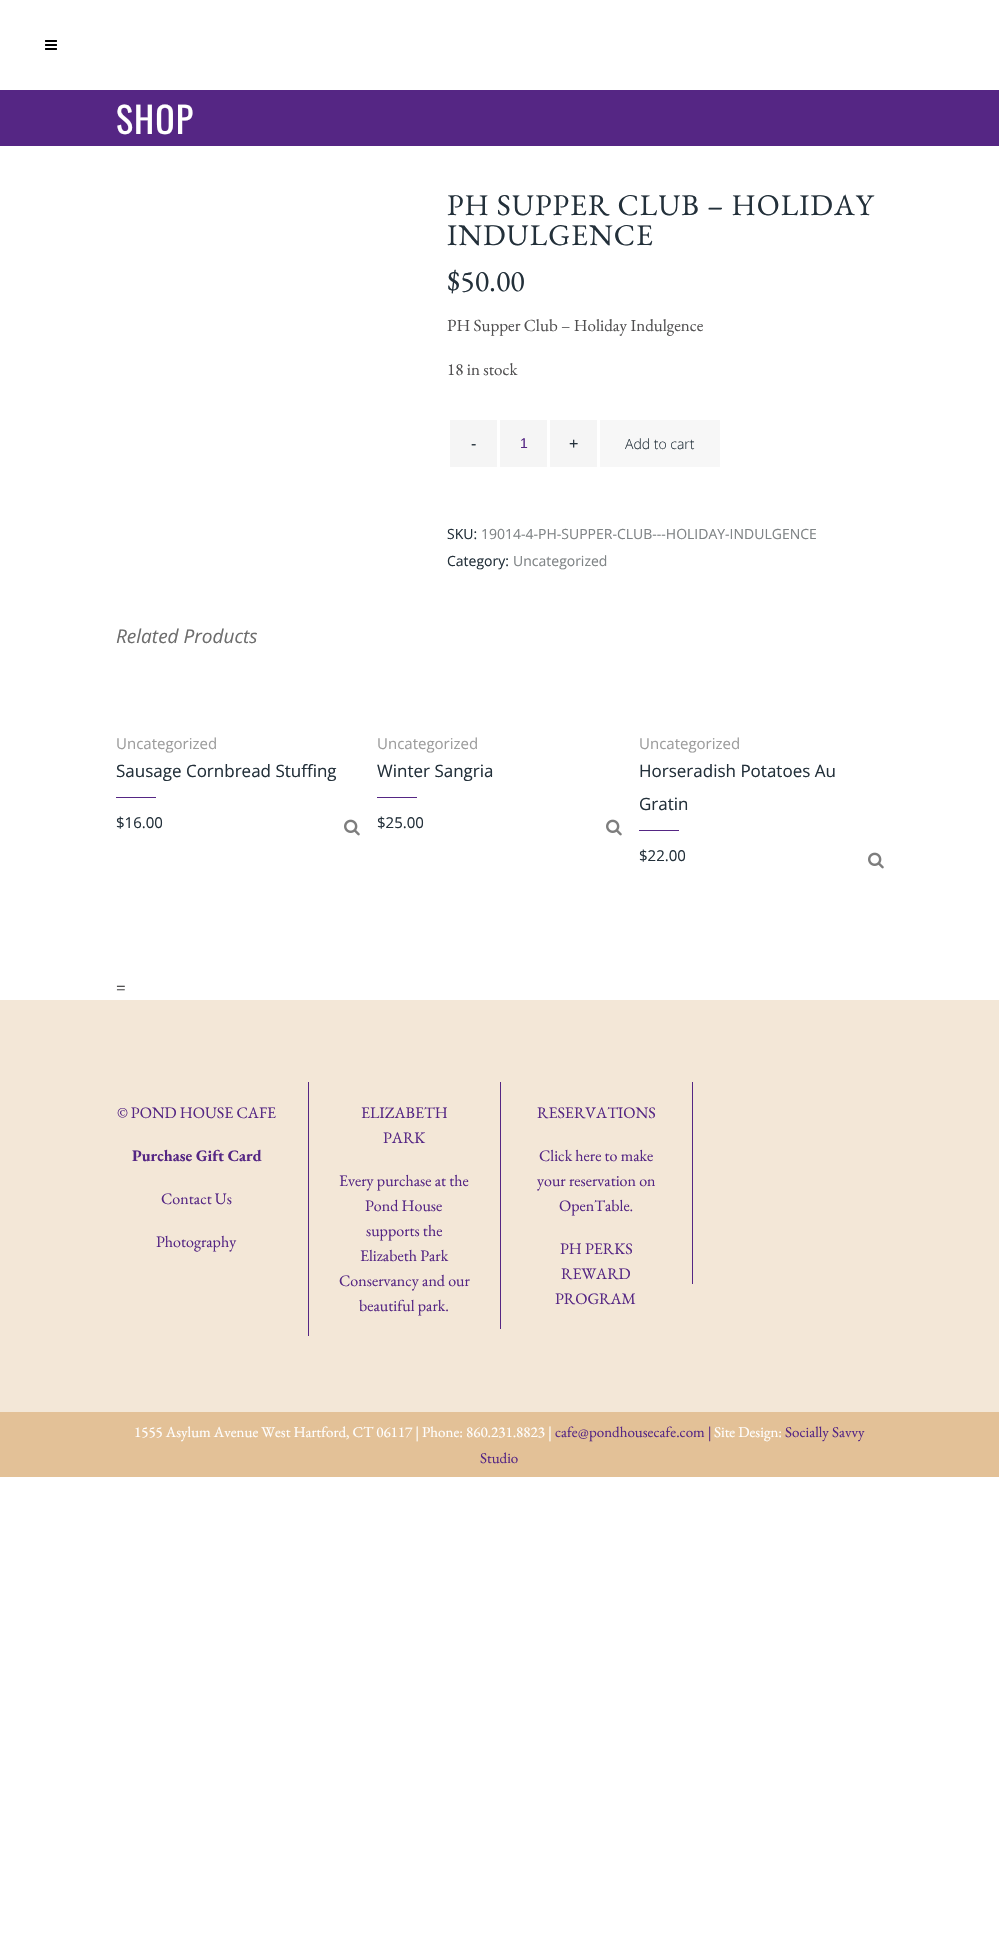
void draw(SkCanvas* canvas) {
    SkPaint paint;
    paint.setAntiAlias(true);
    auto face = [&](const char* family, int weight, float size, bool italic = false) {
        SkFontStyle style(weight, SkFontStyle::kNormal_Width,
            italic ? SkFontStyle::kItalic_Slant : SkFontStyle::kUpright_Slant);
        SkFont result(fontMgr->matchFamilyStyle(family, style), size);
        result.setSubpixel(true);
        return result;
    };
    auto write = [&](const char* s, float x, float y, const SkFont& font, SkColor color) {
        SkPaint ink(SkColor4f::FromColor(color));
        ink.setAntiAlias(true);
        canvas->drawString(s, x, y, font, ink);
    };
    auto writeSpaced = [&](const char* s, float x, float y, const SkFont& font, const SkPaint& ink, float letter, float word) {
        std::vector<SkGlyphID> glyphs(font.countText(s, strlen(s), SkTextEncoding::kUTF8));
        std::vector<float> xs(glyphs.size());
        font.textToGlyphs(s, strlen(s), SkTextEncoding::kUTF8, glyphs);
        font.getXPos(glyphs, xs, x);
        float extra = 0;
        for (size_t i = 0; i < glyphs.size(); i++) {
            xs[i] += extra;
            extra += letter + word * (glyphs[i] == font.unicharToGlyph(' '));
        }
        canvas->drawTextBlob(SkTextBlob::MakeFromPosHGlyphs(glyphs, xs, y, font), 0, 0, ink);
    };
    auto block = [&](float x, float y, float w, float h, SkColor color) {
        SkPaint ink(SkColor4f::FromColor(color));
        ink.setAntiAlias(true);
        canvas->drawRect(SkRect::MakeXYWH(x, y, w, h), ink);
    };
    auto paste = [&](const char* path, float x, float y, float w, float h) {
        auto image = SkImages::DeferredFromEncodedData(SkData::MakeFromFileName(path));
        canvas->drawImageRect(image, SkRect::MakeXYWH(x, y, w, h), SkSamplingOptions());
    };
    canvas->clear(SK_ColorWHITE);
    paste("pic1.png", 45, 40, 12, 10);
    block(0, 90, 999, 56, SkColorSetRGB(85, 38, 132));
    auto kFont1 = face("Oswald", 400, 36);
    paint.setColor(SK_ColorWHITE);
    writeSpaced("SHOP", 116, 134, kFont1, paint, 1, 0);
    auto kFont2 = face("EB Garamond", 400, 30);
    paint.setColor(SkColorSetRGB(35, 48, 58));
    writeSpaced("PH SUPPER CLUB – HOLIDAY", 447, 215, kFont2, paint, 1, 0);
    writeSpaced("INDULGENCE", 447, 245, kFont2, paint, 1, 0);
    write("$50.00", 447, 291, kFont2, SkColorSetRGB(35, 48, 58));
    auto kFont3 = face("EB Garamond", 400, 17);
    write("PH Supper Club – Holiday Indulgence", 447, 331, kFont3, SkColorSetRGB(81, 80, 81));
    write("18 in stock", 447, 375, kFont3, SkColorSetRGB(81, 80, 81));
    block(450, 420, 47, 47, SkColorSetRGB(245, 245, 245));
    auto kFont4 = face("Liberation Sans", 400, 16);
    write("-", 471, 449, kFont4, SkColorSetRGB(35, 48, 58));
    block(500, 420, 47, 47, SkColorSetRGB(245, 245, 245));
    auto kFont5 = face("Liberation Sans", 400, 14);
    write("1", 520, 448, kFont5, SkColorSetRGB(85, 38, 132));
    block(550, 420, 47, 47, SkColorSetRGB(245, 245, 245));
    write("+", 569, 449, kFont4, SkColorSetRGB(35, 48, 58));
    block(600, 420, 120, 47, SkColorSetRGB(247, 247, 247));
    auto kFont6 = face("Open Sans", 300, 14);
    write("Add to cart", 625, 449, kFont6, SkColorSetRGB(35, 48, 58));
    auto kFont7 = face("Open Sans", 400, 14);
    write("SKU:", 447, 539, kFont7, SkColorSetRGB(35, 48, 58));
    write("19014-4-PH-SUPPER-CLUB---HOLIDAY-INDULGENCE", 481, 539, kFont7, SkColorSetRGB(127, 132, 134));
    write("Category:", 447, 566, kFont7, SkColorSetRGB(35, 48, 58));
    write("Uncategorized", 513, 566, kFont7, SkColorSetRGB(127, 132, 134));
    auto kFont8 = face("Open Sans", 400, 19, true);
    write("Related Products", 116, 643, kFont8, SkColorSetRGB(109, 109, 109));
    auto kFont9 = face("Open Sans", 400, 15);
    write("Uncategorized", 116, 749, kFont9, SkColorSetRGB(157, 157, 157));
    auto kFont10 = face("Open Sans", 400, 17);
    write("Sausage Cornbread Stuffing", 116, 777, kFont10, SkColorSetRGB(35, 48, 58));
    block(116, 797, 40, 1, SkColorSetRGB(85, 38, 132));
    write("$16.00", 116, 828, kFont9, SkColorSetRGB(35, 48, 58));
    paste("pic2.png", 344, 819, 16, 17);
    write("Uncategorized", 377, 749, kFont9, SkColorSetRGB(157, 157, 157));
    write("Winter Sangria", 377, 777, kFont10, SkColorSetRGB(35, 48, 58));
    block(377, 797, 40, 1, SkColorSetRGB(85, 38, 132));
    write("$25.00", 377, 828, kFont9, SkColorSetRGB(35, 48, 58));
    paste("pic2.png", 606, 819, 16, 17);
    write("Uncategorized", 639, 749, kFont9, SkColorSetRGB(157, 157, 157));
    write("Horseradish Potatoes Au", 639, 777, kFont10, SkColorSetRGB(35, 48, 58));
    write("Gratin", 639, 810, kFont10, SkColorSetRGB(35, 48, 58));
    block(639, 830, 40, 1, SkColorSetRGB(85, 38, 132));
    write("$22.00", 639, 861, kFont9, SkColorSetRGB(35, 48, 58));
    paste("pic2.png", 868, 852, 16, 17);
    write("=", 116, 994, kFont10, SkColorSetRGB(81, 80, 81));
    block(0, 1000, 999, 412, SkColorSetRGB(243, 231, 215));
    auto kFont11 = face("EB Garamond", 400, 16);
    write("© POND HOUSE CAFE", 117, 1118, kFont11, SkColorSetRGB(85, 38, 132));
    auto kFont12 = face("EB Garamond", 700, 16);
    write("Purchase Gift Card", 132, 1161, kFont12, SkColorSetRGB(85, 38, 132));
    write("Contact Us", 161, 1204, kFont11, SkColorSetRGB(85, 38, 132));
    write("Photography", 156, 1247, kFont11, SkColorSetRGB(85, 38, 132));
    block(308, 1082, 1, 254, SkColorSetRGB(85, 38, 132));
    write("ELIZABETH", 361, 1118, kFont11, SkColorSetRGB(85, 38, 132));
    write("PARK", 383, 1143, kFont11, SkColorSetRGB(85, 38, 132));
    write("Every purchase at the", 339, 1186, kFont11, SkColorSetRGB(85, 38, 132));
    write("Pond House", 365, 1211, kFont11, SkColorSetRGB(85, 38, 132));
    write("supports the", 366, 1236, kFont11, SkColorSetRGB(85, 38, 132));
    write("Elizabeth Park", 360, 1261, kFont11, SkColorSetRGB(85, 38, 132));
    write("Conservancy and our", 339, 1286, kFont11, SkColorSetRGB(85, 38, 132));
    write("beautiful park.", 359, 1311, kFont11, SkColorSetRGB(85, 38, 132));
    block(500, 1082, 1, 247, SkColorSetRGB(85, 38, 132));
    write("RESERVATIONS", 537, 1118, kFont11, SkColorSetRGB(85, 38, 132));
    write("Click here to make", 539, 1161, kFont11, SkColorSetRGB(85, 38, 132));
    write("your reservation on", 537, 1186, kFont11, SkColorSetRGB(85, 38, 132));
    write("OpenTable.", 559, 1211, kFont11, SkColorSetRGB(85, 38, 132));
    write("PH PERKS", 560, 1254, kFont11, SkColorSetRGB(85, 38, 132));
    write("REWARD", 561, 1279, kFont11, SkColorSetRGB(85, 38, 132));
    write("PROGRAM", 555, 1304, kFont11, SkColorSetRGB(85, 38, 132));
    block(692, 1082, 1, 202, SkColorSetRGB(85, 38, 132));
    block(0, 1412, 999, 65, SkColorSetRGB(227, 193, 151));
    auto kFont13 = face("EB Garamond", 400, 15);
    write("1555 Asylum Avenue West Hartford, CT 06117 | Phone: 860.231.8823 |", 134, 1437, kFont13, SK_ColorWHITE);
    write("cafe@pondhousecafe.com |", 555, 1437, kFont13, SkColorSetRGB(85, 38, 132));
    write("Site Design:", 714, 1437, kFont13, SK_ColorWHITE);
    write("Socially Savvy", 785, 1437, kFont13, SkColorSetRGB(85, 38, 132));
    write("Studio", 480, 1463, kFont13, SkColorSetRGB(85, 38, 132));
}
